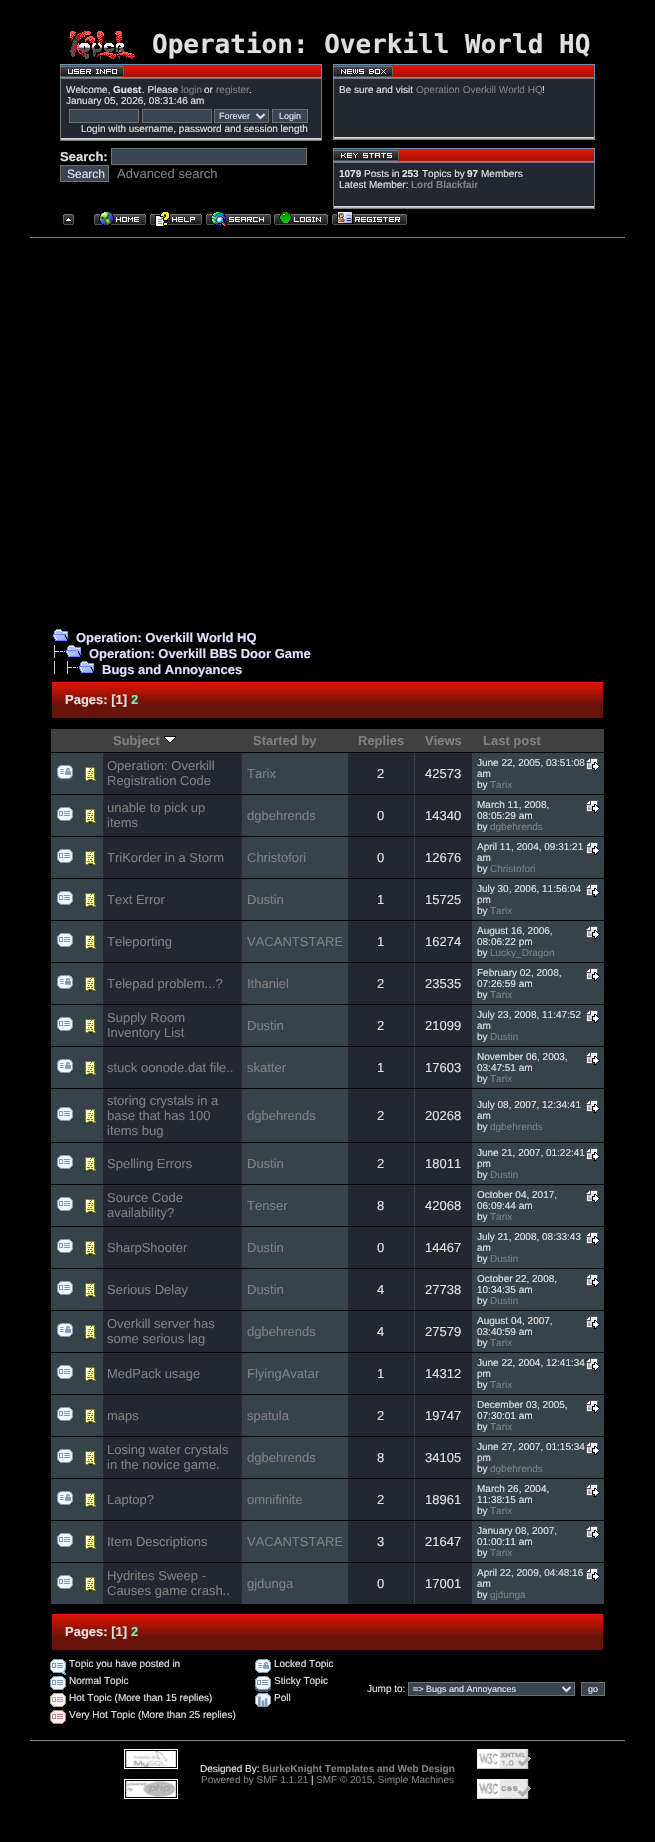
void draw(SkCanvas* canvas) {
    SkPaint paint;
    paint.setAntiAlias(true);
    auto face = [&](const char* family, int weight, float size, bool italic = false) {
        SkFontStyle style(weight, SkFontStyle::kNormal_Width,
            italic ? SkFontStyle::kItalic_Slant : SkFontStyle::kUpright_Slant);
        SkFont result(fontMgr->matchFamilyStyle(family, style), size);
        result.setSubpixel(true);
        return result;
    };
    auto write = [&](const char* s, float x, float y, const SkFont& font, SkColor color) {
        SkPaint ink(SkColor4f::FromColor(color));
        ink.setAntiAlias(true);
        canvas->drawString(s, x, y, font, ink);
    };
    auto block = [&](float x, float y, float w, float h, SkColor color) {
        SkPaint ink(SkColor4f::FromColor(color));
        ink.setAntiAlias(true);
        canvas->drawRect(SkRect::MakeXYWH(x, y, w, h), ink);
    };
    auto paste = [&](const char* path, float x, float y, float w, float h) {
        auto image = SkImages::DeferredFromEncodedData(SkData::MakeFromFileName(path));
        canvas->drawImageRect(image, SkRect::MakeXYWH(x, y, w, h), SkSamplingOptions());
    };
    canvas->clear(SK_ColorBLACK);
    block(30, 237, 595, 1, SkColorSetRGB(128, 128, 128));
    paste("pic1.png", 70, 31, 65, 28);
    auto kFont1 = face("DejaVu Sans Mono", 700, 26);
    write("Operation: Overkill World HQ", 152, 53, kFont1, SkColorSetRGB(224, 224, 224));
    paste("pic2.png", 61, 65, 260, 12);
    paint.setStyle(SkPaint::kStroke_Style);
    paint.setStrokeWidth(1);
    paint.setColor(SkColorSetRGB(107, 142, 174));
    canvas->drawRect(SkRect::MakeXYWH(60.5f, 64.5f, 261, 13), paint);
    block(61, 79, 260, 59, SkColorSetRGB(35, 39, 48));
    paste("pic3.png", 61, 138, 260, 2);
    paint.setColor(SkColorSetRGB(122, 119, 119));
    canvas->drawRect(SkRect::MakeXYWH(60.5f, 78.5f, 261, 62), paint);
    paste("pic4.png", 60, 66, 64, 11);
    auto kFont2 = face("Liberation Sans", 400, 10);
    write("Welcome,", 66, 93, kFont2, SkColorSetRGB(224, 224, 224));
    auto kFont3 = face("Liberation Sans", 700, 10);
    write("Guest", 113, 93, kFont3, SkColorSetRGB(224, 224, 224));
    write(". Please", 142, 93, kFont2, SkColorSetRGB(224, 224, 224));
    write("login", 181, 93, kFont2, SkColorSetRGB(128, 128, 128));
    write("or", 204, 93, kFont2, SkColorSetRGB(224, 224, 224));
    write("register", 216, 93, kFont2, SkColorSetRGB(128, 128, 128));
    write(".", 249, 93, kFont2, SkColorSetRGB(224, 224, 224));
    write("January 05, 2026, 08:31:46 am", 66, 104, kFont2, SkColorSetRGB(224, 224, 224));
    paint.setStyle(SkPaint::kFill_Style);
    paint.setColor(SkColorSetRGB(57, 69, 81));
    canvas->drawRect(SkRect::MakeXYWH(69.5f, 109.5f, 69, 13), paint);
    paint.setStyle(SkPaint::kStroke_Style);
    paint.setColor(SkColorSetRGB(112, 112, 112));
    canvas->drawRect(SkRect::MakeXYWH(69.5f, 109.5f, 69, 13), paint);
    paint.setStyle(SkPaint::kFill_Style);
    paint.setColor(SkColorSetRGB(57, 69, 81));
    canvas->drawRect(SkRect::MakeXYWH(142.5f, 109.5f, 69, 13), paint);
    paint.setStyle(SkPaint::kStroke_Style);
    paint.setColor(SkColorSetRGB(112, 112, 112));
    canvas->drawRect(SkRect::MakeXYWH(142.5f, 109.5f, 69, 13), paint);
    paint.setStyle(SkPaint::kFill_Style);
    paint.setColor(SkColorSetRGB(57, 69, 81));
    canvas->drawRect(SkRect::MakeXYWH(214.5f, 109.5f, 54, 13), paint);
    paint.setStyle(SkPaint::kStroke_Style);
    paint.setColor(SkColorSetRGB(112, 112, 112));
    canvas->drawRect(SkRect::MakeXYWH(214.5f, 109.5f, 54, 13), paint);
    paint.setStrokeWidth(2);
    paint.setColor(SkColorSetRGB(224, 224, 240));
    canvas->drawPath(SkPathBuilder().moveTo(256.5f, 114).lineTo(260.5f, 118).lineTo(264.5f, 114).detach(), paint);
    auto kFont4 = face("Liberation Sans", 400, 9);
    write("Forever", 219, 119, kFont4, SkColorSetRGB(224, 224, 240));
    paint.setStyle(SkPaint::kFill_Style);
    paint.setColor(SkColorSetRGB(57, 69, 81));
    canvas->drawRect(SkRect::MakeXYWH(272.5f, 109.5f, 35, 13), paint);
    paint.setStyle(SkPaint::kStroke_Style);
    paint.setStrokeWidth(1);
    paint.setColor(SkColorSetRGB(112, 112, 112));
    canvas->drawRect(SkRect::MakeXYWH(272.5f, 109.5f, 35, 13), paint);
    write("Login", 279, 119, kFont4, SkColorSetRGB(224, 224, 240));
    write("Login with username, password and session length", 81, 132, kFont2, SkColorSetRGB(224, 224, 224));
    auto kFont5 = face("Liberation Sans", 700, 13);
    write("Search:", 60, 161, kFont5, SkColorSetRGB(224, 224, 224));
    paint.setStyle(SkPaint::kFill_Style);
    paint.setColor(SkColorSetRGB(57, 69, 81));
    canvas->drawRect(SkRect::MakeXYWH(111.5f, 148.5f, 195, 16), paint);
    paint.setStyle(SkPaint::kStroke_Style);
    paint.setColor(SkColorSetRGB(112, 112, 112));
    canvas->drawRect(SkRect::MakeXYWH(111.5f, 148.5f, 195, 16), paint);
    paint.setStyle(SkPaint::kFill_Style);
    paint.setColor(SkColorSetRGB(57, 69, 81));
    canvas->drawRect(SkRect::MakeXYWH(60.5f, 165.5f, 48, 16), paint);
    paint.setStyle(SkPaint::kStroke_Style);
    paint.setColor(SkColorSetRGB(112, 112, 112));
    canvas->drawRect(SkRect::MakeXYWH(60.5f, 165.5f, 48, 16), paint);
    auto kFont6 = face("Liberation Sans", 400, 12);
    write("Search", 67, 178, kFont6, SkColorSetRGB(224, 224, 240));
    auto kFont7 = face("Liberation Sans", 400, 13);
    write("Advanced search", 117, 178, kFont7, SkColorSetRGB(128, 128, 128));
    paste("pic2.png", 334, 65, 260, 12);
    paint.setColor(SkColorSetRGB(107, 142, 174));
    canvas->drawRect(SkRect::MakeXYWH(333.5f, 64.5f, 261, 13), paint);
    block(334, 79, 260, 58, SkColorSetRGB(35, 39, 48));
    paste("pic3.png", 334, 137, 260, 2);
    paint.setColor(SkColorSetRGB(122, 119, 119));
    canvas->drawRect(SkRect::MakeXYWH(333.5f, 78.5f, 261, 61), paint);
    paste("pic5.png", 333, 66, 60, 11);
    write("Be sure and visit", 339, 93, kFont2, SkColorSetRGB(224, 224, 224));
    write("Operation Overkill World HQ", 416, 93, kFont2, SkColorSetRGB(128, 128, 128));
    write("!", 542, 93, kFont2, SkColorSetRGB(224, 224, 224));
    paste("pic2.png", 334, 149, 260, 12);
    paint.setColor(SkColorSetRGB(107, 142, 174));
    canvas->drawRect(SkRect::MakeXYWH(333.5f, 148.5f, 261, 13), paint);
    block(334, 163, 260, 43, SkColorSetRGB(35, 39, 48));
    paste("pic3.png", 334, 206, 260, 2);
    paint.setColor(SkColorSetRGB(122, 119, 119));
    canvas->drawRect(SkRect::MakeXYWH(333.5f, 162.5f, 261, 46), paint);
    paste("pic6.png", 333, 150, 66, 11);
    write("1079", 339, 177, kFont3, SkColorSetRGB(224, 224, 224));
    write("Posts in", 364, 177, kFont2, SkColorSetRGB(224, 224, 224));
    write("253", 402, 177, kFont3, SkColorSetRGB(224, 224, 224));
    write("Topics by", 422, 177, kFont2, SkColorSetRGB(224, 224, 224));
    write("97", 467, 177, kFont3, SkColorSetRGB(224, 224, 224));
    write("Members", 481, 177, kFont2, SkColorSetRGB(224, 224, 224));
    write("Latest Member:", 339, 188, kFont2, SkColorSetRGB(224, 224, 224));
    write("Lord Blackfair", 411, 188, kFont3, SkColorSetRGB(128, 128, 128));
    paste("pic7.png", 63, 214, 11, 11);
    paste("pic8.png", 94, 212, 52, 13);
    paste("pic9.png", 150, 212, 52, 14);
    paste("pic10.png", 206, 212, 65, 14);
    paste("pic11.png", 274, 212, 54, 13);
    paste("pic12.png", 332, 212, 75, 13);
    paste("pic13.png", 53, 629, 15, 12);
    write("Operation: Overkill World HQ", 76, 642, kFont5, SkColorSetRGB(224, 224, 255));
    paste("pic14.png", 54, 645, 11, 13);
    paste("pic13.png", 66, 645, 15, 12);
    write("Operation: Overkill BBS Door Game", 89, 658, kFont5, SkColorSetRGB(224, 224, 255));
    paste("pic14.png", 67, 661, 11, 13);
    paste("pic13.png", 79, 661, 15, 12);
    write("Bugs and Annoyances", 102, 674, kFont5, SkColorSetRGB(224, 224, 255));
    block(54, 661, 1, 13, SkColorSetRGB(198, 209, 225));
    paste("pic15.png", 52, 682, 551, 36);
    write("Pages: [1]", 65, 704, kFont5, SkColorSetRGB(224, 224, 224));
    write("2", 131, 704, kFont5, SkColorSetRGB(102, 255, 204));
    block(51, 729, 553, 23, SkColorSetRGB(64, 64, 64));
    write("Subject", 113, 745, kFont5, SkColorSetRGB(128, 128, 128));
    paste("pic16.png", 164, 736, 12, 7);
    write("Started by", 253, 745, kFont5, SkColorSetRGB(128, 128, 128));
    write("Replies", 358, 745, kFont5, SkColorSetRGB(128, 128, 128));
    write("Views", 425, 745, kFont5, SkColorSetRGB(128, 128, 128));
    write("Last post", 483, 745, kFont5, SkColorSetRGB(128, 128, 128));
    block(51, 753, 553, 41, SkColorSetRGB(54, 67, 75));
    paste("pic17.png", 57, 765, 16, 16);
    paste("pic18.png", 85, 767, 11, 14);
    block(103, 753, 139, 41, SkColorSetRGB(35, 39, 48));
    write("Operation: Overkill", 107, 770, kFont7, SkColorSetRGB(128, 128, 128));
    write("Registration Code", 107, 785, kFont7, SkColorSetRGB(128, 128, 128));
    write("Tarix", 247, 778, kFont7, SkColorSetRGB(128, 128, 128));
    block(348, 753, 66, 41, SkColorSetRGB(35, 39, 48));
    write("2", 377, 778, kFont7, SkColorSetRGB(224, 224, 224));
    block(415, 753, 57, 41, SkColorSetRGB(35, 39, 48));
    write("42573", 425, 778, kFont7, SkColorSetRGB(224, 224, 224));
    write("June 22, 2005, 03:51:08", 477, 766, kFont2, SkColorSetRGB(224, 224, 224));
    paste("pic19.png", 586, 758, 14, 13);
    write("am", 477, 777, kFont2, SkColorSetRGB(224, 224, 224));
    write("by", 477, 788, kFont2, SkColorSetRGB(224, 224, 224));
    write("Tarix", 490, 788, kFont2, SkColorSetRGB(128, 128, 128));
    block(51, 795, 553, 41, SkColorSetRGB(54, 67, 75));
    paste("pic20.png", 57, 807, 16, 14);
    paste("pic18.png", 85, 809, 11, 14);
    block(103, 795, 139, 41, SkColorSetRGB(35, 39, 48));
    write("unable to pick up", 107, 812, kFont7, SkColorSetRGB(128, 128, 128));
    write("items", 107, 827, kFont7, SkColorSetRGB(128, 128, 128));
    write("dgbehrends", 247, 820, kFont7, SkColorSetRGB(128, 128, 128));
    block(348, 795, 66, 41, SkColorSetRGB(35, 39, 48));
    write("0", 377, 820, kFont7, SkColorSetRGB(224, 224, 224));
    block(415, 795, 57, 41, SkColorSetRGB(35, 39, 48));
    write("14340", 425, 820, kFont7, SkColorSetRGB(224, 224, 224));
    write("March 11, 2008,", 477, 808, kFont2, SkColorSetRGB(224, 224, 224));
    paste("pic19.png", 586, 800, 14, 13);
    write("08:05:29 am", 477, 819, kFont2, SkColorSetRGB(224, 224, 224));
    write("by", 477, 830, kFont2, SkColorSetRGB(224, 224, 224));
    write("dgbehrends", 490, 830, kFont2, SkColorSetRGB(128, 128, 128));
    block(51, 837, 553, 41, SkColorSetRGB(54, 67, 75));
    paste("pic20.png", 57, 849, 16, 14);
    paste("pic18.png", 85, 851, 11, 14);
    block(103, 837, 139, 41, SkColorSetRGB(35, 39, 48));
    write("TriKorder in a Storm", 107, 862, kFont7, SkColorSetRGB(128, 128, 128));
    write("Christofori", 247, 862, kFont7, SkColorSetRGB(128, 128, 128));
    block(348, 837, 66, 41, SkColorSetRGB(35, 39, 48));
    write("0", 377, 862, kFont7, SkColorSetRGB(224, 224, 224));
    block(415, 837, 57, 41, SkColorSetRGB(35, 39, 48));
    write("12676", 425, 862, kFont7, SkColorSetRGB(224, 224, 224));
    write("April 11, 2004, 09:31:21", 477, 850, kFont2, SkColorSetRGB(224, 224, 224));
    paste("pic19.png", 586, 842, 14, 13);
    write("am", 477, 861, kFont2, SkColorSetRGB(224, 224, 224));
    write("by", 477, 872, kFont2, SkColorSetRGB(224, 224, 224));
    write("Christofori", 490, 872, kFont2, SkColorSetRGB(128, 128, 128));
    block(51, 879, 553, 41, SkColorSetRGB(54, 67, 75));
    paste("pic20.png", 57, 891, 16, 14);
    paste("pic18.png", 85, 893, 11, 14);
    block(103, 879, 139, 41, SkColorSetRGB(35, 39, 48));
    write("Text Error", 107, 904, kFont7, SkColorSetRGB(128, 128, 128));
    write("Dustin", 247, 904, kFont7, SkColorSetRGB(128, 128, 128));
    block(348, 879, 66, 41, SkColorSetRGB(35, 39, 48));
    write("1", 377, 904, kFont7, SkColorSetRGB(224, 224, 224));
    block(415, 879, 57, 41, SkColorSetRGB(35, 39, 48));
    write("15725", 425, 904, kFont7, SkColorSetRGB(224, 224, 224));
    write("July 30, 2006, 11:56:04", 477, 892, kFont2, SkColorSetRGB(224, 224, 224));
    paste("pic19.png", 586, 884, 14, 13);
    write("pm", 477, 903, kFont2, SkColorSetRGB(224, 224, 224));
    write("by", 477, 914, kFont2, SkColorSetRGB(224, 224, 224));
    write("Tarix", 490, 914, kFont2, SkColorSetRGB(128, 128, 128));
    block(51, 921, 553, 41, SkColorSetRGB(54, 67, 75));
    paste("pic20.png", 57, 933, 16, 14);
    paste("pic18.png", 85, 935, 11, 14);
    block(103, 921, 139, 41, SkColorSetRGB(35, 39, 48));
    write("Teleporting", 107, 946, kFont7, SkColorSetRGB(128, 128, 128));
    write("VACANTSTARE", 247, 946, kFont7, SkColorSetRGB(128, 128, 128));
    block(348, 921, 66, 41, SkColorSetRGB(35, 39, 48));
    write("1", 377, 946, kFont7, SkColorSetRGB(224, 224, 224));
    block(415, 921, 57, 41, SkColorSetRGB(35, 39, 48));
    write("16274", 425, 946, kFont7, SkColorSetRGB(224, 224, 224));
    write("August 16, 2006,", 477, 934, kFont2, SkColorSetRGB(224, 224, 224));
    paste("pic19.png", 586, 926, 14, 13);
    write("08:06:22 pm", 477, 945, kFont2, SkColorSetRGB(224, 224, 224));
    write("by", 477, 956, kFont2, SkColorSetRGB(224, 224, 224));
    write("Lucky_Dragon", 490, 956, kFont2, SkColorSetRGB(128, 128, 128));
    block(51, 963, 553, 41, SkColorSetRGB(54, 67, 75));
    paste("pic21.png", 57, 975, 16, 14);
    paste("pic18.png", 85, 977, 11, 14);
    block(103, 963, 139, 41, SkColorSetRGB(35, 39, 48));
    write("Telepad problem...?", 107, 988, kFont7, SkColorSetRGB(128, 128, 128));
    write("Ithaniel", 247, 988, kFont7, SkColorSetRGB(128, 128, 128));
    block(348, 963, 66, 41, SkColorSetRGB(35, 39, 48));
    write("2", 377, 988, kFont7, SkColorSetRGB(224, 224, 224));
    block(415, 963, 57, 41, SkColorSetRGB(35, 39, 48));
    write("23535", 425, 988, kFont7, SkColorSetRGB(224, 224, 224));
    write("February 02, 2008,", 477, 976, kFont2, SkColorSetRGB(224, 224, 224));
    paste("pic19.png", 586, 968, 14, 13);
    write("07:26:59 am", 477, 987, kFont2, SkColorSetRGB(224, 224, 224));
    write("by", 477, 998, kFont2, SkColorSetRGB(224, 224, 224));
    write("Tarix", 490, 998, kFont2, SkColorSetRGB(128, 128, 128));
    block(51, 1005, 553, 41, SkColorSetRGB(54, 67, 75));
    paste("pic20.png", 57, 1017, 16, 14);
    paste("pic18.png", 85, 1019, 11, 14);
    block(103, 1005, 139, 41, SkColorSetRGB(35, 39, 48));
    write("Supply Room", 107, 1022, kFont7, SkColorSetRGB(128, 128, 128));
    write("Inventory List", 107, 1037, kFont7, SkColorSetRGB(128, 128, 128));
    write("Dustin", 247, 1030, kFont7, SkColorSetRGB(128, 128, 128));
    block(348, 1005, 66, 41, SkColorSetRGB(35, 39, 48));
    write("2", 377, 1030, kFont7, SkColorSetRGB(224, 224, 224));
    block(415, 1005, 57, 41, SkColorSetRGB(35, 39, 48));
    write("21099", 425, 1030, kFont7, SkColorSetRGB(224, 224, 224));
    write("July 23, 2008, 11:47:52", 477, 1018, kFont2, SkColorSetRGB(224, 224, 224));
    paste("pic19.png", 586, 1010, 14, 13);
    write("am", 477, 1029, kFont2, SkColorSetRGB(224, 224, 224));
    write("by", 477, 1040, kFont2, SkColorSetRGB(224, 224, 224));
    write("Dustin", 490, 1040, kFont2, SkColorSetRGB(128, 128, 128));
    block(51, 1047, 553, 41, SkColorSetRGB(54, 67, 75));
    paste("pic21.png", 57, 1059, 16, 14);
    paste("pic18.png", 85, 1061, 11, 14);
    block(103, 1047, 139, 41, SkColorSetRGB(35, 39, 48));
    write("stuck oonode.dat file..", 107, 1072, kFont7, SkColorSetRGB(128, 128, 128));
    write("skatter", 247, 1072, kFont7, SkColorSetRGB(128, 128, 128));
    block(348, 1047, 66, 41, SkColorSetRGB(35, 39, 48));
    write("1", 377, 1072, kFont7, SkColorSetRGB(224, 224, 224));
    block(415, 1047, 57, 41, SkColorSetRGB(35, 39, 48));
    write("17603", 425, 1072, kFont7, SkColorSetRGB(224, 224, 224));
    write("November 06, 2003,", 477, 1060, kFont2, SkColorSetRGB(224, 224, 224));
    paste("pic19.png", 586, 1052, 14, 13);
    write("03:47:51 am", 477, 1071, kFont2, SkColorSetRGB(224, 224, 224));
    write("by", 477, 1082, kFont2, SkColorSetRGB(224, 224, 224));
    write("Tarix", 490, 1082, kFont2, SkColorSetRGB(128, 128, 128));
    block(51, 1089, 553, 53, SkColorSetRGB(54, 67, 75));
    paste("pic20.png", 57, 1107, 16, 14);
    paste("pic18.png", 85, 1109, 11, 14);
    block(103, 1089, 139, 53, SkColorSetRGB(35, 39, 48));
    write("storing crystals in a", 107, 1105, kFont7, SkColorSetRGB(128, 128, 128));
    write("base that has 100", 107, 1120, kFont7, SkColorSetRGB(128, 128, 128));
    write("items bug", 107, 1135, kFont7, SkColorSetRGB(128, 128, 128));
    write("dgbehrends", 247, 1120, kFont7, SkColorSetRGB(128, 128, 128));
    block(348, 1089, 66, 53, SkColorSetRGB(35, 39, 48));
    write("2", 377, 1120, kFont7, SkColorSetRGB(224, 224, 224));
    block(415, 1089, 57, 53, SkColorSetRGB(35, 39, 48));
    write("20268", 425, 1120, kFont7, SkColorSetRGB(224, 224, 224));
    write("July 08, 2007, 12:34:41", 477, 1108, kFont2, SkColorSetRGB(224, 224, 224));
    paste("pic19.png", 586, 1100, 14, 13);
    write("am", 477, 1119, kFont2, SkColorSetRGB(224, 224, 224));
    write("by", 477, 1130, kFont2, SkColorSetRGB(224, 224, 224));
    write("dgbehrends", 490, 1130, kFont2, SkColorSetRGB(128, 128, 128));
    block(51, 1143, 553, 41, SkColorSetRGB(54, 67, 75));
    paste("pic20.png", 57, 1155, 16, 14);
    paste("pic18.png", 85, 1157, 11, 14);
    block(103, 1143, 139, 41, SkColorSetRGB(35, 39, 48));
    write("Spelling Errors", 107, 1168, kFont7, SkColorSetRGB(128, 128, 128));
    write("Dustin", 247, 1168, kFont7, SkColorSetRGB(128, 128, 128));
    block(348, 1143, 66, 41, SkColorSetRGB(35, 39, 48));
    write("2", 377, 1168, kFont7, SkColorSetRGB(224, 224, 224));
    block(415, 1143, 57, 41, SkColorSetRGB(35, 39, 48));
    write("18011", 425, 1168, kFont7, SkColorSetRGB(224, 224, 224));
    write("June 21, 2007, 01:22:41", 477, 1156, kFont2, SkColorSetRGB(224, 224, 224));
    paste("pic19.png", 586, 1148, 14, 13);
    write("pm", 477, 1167, kFont2, SkColorSetRGB(224, 224, 224));
    write("by", 477, 1178, kFont2, SkColorSetRGB(224, 224, 224));
    write("Dustin", 490, 1178, kFont2, SkColorSetRGB(128, 128, 128));
    block(51, 1185, 553, 41, SkColorSetRGB(54, 67, 75));
    paste("pic20.png", 57, 1197, 16, 14);
    paste("pic18.png", 85, 1199, 11, 14);
    block(103, 1185, 139, 41, SkColorSetRGB(35, 39, 48));
    write("Source Code", 107, 1202, kFont7, SkColorSetRGB(128, 128, 128));
    write("availability?", 107, 1217, kFont7, SkColorSetRGB(128, 128, 128));
    write("Tenser", 247, 1210, kFont7, SkColorSetRGB(128, 128, 128));
    block(348, 1185, 66, 41, SkColorSetRGB(35, 39, 48));
    write("8", 377, 1210, kFont7, SkColorSetRGB(224, 224, 224));
    block(415, 1185, 57, 41, SkColorSetRGB(35, 39, 48));
    write("42068", 425, 1210, kFont7, SkColorSetRGB(224, 224, 224));
    write("October 04, 2017,", 477, 1198, kFont2, SkColorSetRGB(224, 224, 224));
    paste("pic19.png", 586, 1190, 14, 13);
    write("06:09:44 am", 477, 1209, kFont2, SkColorSetRGB(224, 224, 224));
    write("by", 477, 1220, kFont2, SkColorSetRGB(224, 224, 224));
    write("Tarix", 490, 1220, kFont2, SkColorSetRGB(128, 128, 128));
    block(51, 1227, 553, 41, SkColorSetRGB(54, 67, 75));
    paste("pic20.png", 57, 1239, 16, 14);
    paste("pic18.png", 85, 1241, 11, 14);
    block(103, 1227, 139, 41, SkColorSetRGB(35, 39, 48));
    write("SharpShooter", 107, 1252, kFont7, SkColorSetRGB(128, 128, 128));
    write("Dustin", 247, 1252, kFont7, SkColorSetRGB(128, 128, 128));
    block(348, 1227, 66, 41, SkColorSetRGB(35, 39, 48));
    write("0", 377, 1252, kFont7, SkColorSetRGB(224, 224, 224));
    block(415, 1227, 57, 41, SkColorSetRGB(35, 39, 48));
    write("14467", 425, 1252, kFont7, SkColorSetRGB(224, 224, 224));
    write("July 21, 2008, 08:33:43", 477, 1240, kFont2, SkColorSetRGB(224, 224, 224));
    paste("pic19.png", 586, 1232, 14, 13);
    write("am", 477, 1251, kFont2, SkColorSetRGB(224, 224, 224));
    write("by", 477, 1262, kFont2, SkColorSetRGB(224, 224, 224));
    write("Dustin", 490, 1262, kFont2, SkColorSetRGB(128, 128, 128));
    block(51, 1269, 553, 41, SkColorSetRGB(54, 67, 75));
    paste("pic20.png", 57, 1281, 16, 14);
    paste("pic18.png", 85, 1283, 11, 14);
    block(103, 1269, 139, 41, SkColorSetRGB(35, 39, 48));
    write("Serious Delay", 107, 1294, kFont7, SkColorSetRGB(128, 128, 128));
    write("Dustin", 247, 1294, kFont7, SkColorSetRGB(128, 128, 128));
    block(348, 1269, 66, 41, SkColorSetRGB(35, 39, 48));
    write("4", 377, 1294, kFont7, SkColorSetRGB(224, 224, 224));
    block(415, 1269, 57, 41, SkColorSetRGB(35, 39, 48));
    write("27738", 425, 1294, kFont7, SkColorSetRGB(224, 224, 224));
    write("October 22, 2008,", 477, 1282, kFont2, SkColorSetRGB(224, 224, 224));
    paste("pic19.png", 586, 1274, 14, 13);
    write("10:34:35 am", 477, 1293, kFont2, SkColorSetRGB(224, 224, 224));
    write("by", 477, 1304, kFont2, SkColorSetRGB(224, 224, 224));
    write("Dustin", 490, 1304, kFont2, SkColorSetRGB(128, 128, 128));
    block(51, 1311, 553, 41, SkColorSetRGB(54, 67, 75));
    paste("pic21.png", 57, 1323, 16, 14);
    paste("pic18.png", 85, 1325, 11, 14);
    block(103, 1311, 139, 41, SkColorSetRGB(35, 39, 48));
    write("Overkill server has", 107, 1328, kFont7, SkColorSetRGB(128, 128, 128));
    write("some serious lag", 107, 1343, kFont7, SkColorSetRGB(128, 128, 128));
    write("dgbehrends", 247, 1336, kFont7, SkColorSetRGB(128, 128, 128));
    block(348, 1311, 66, 41, SkColorSetRGB(35, 39, 48));
    write("4", 377, 1336, kFont7, SkColorSetRGB(224, 224, 224));
    block(415, 1311, 57, 41, SkColorSetRGB(35, 39, 48));
    write("27579", 425, 1336, kFont7, SkColorSetRGB(224, 224, 224));
    write("August 04, 2007,", 477, 1324, kFont2, SkColorSetRGB(224, 224, 224));
    paste("pic19.png", 586, 1316, 14, 13);
    write("03:40:59 am", 477, 1335, kFont2, SkColorSetRGB(224, 224, 224));
    write("by", 477, 1346, kFont2, SkColorSetRGB(224, 224, 224));
    write("Tarix", 490, 1346, kFont2, SkColorSetRGB(128, 128, 128));
    block(51, 1353, 553, 41, SkColorSetRGB(54, 67, 75));
    paste("pic20.png", 57, 1365, 16, 14);
    paste("pic18.png", 85, 1367, 11, 14);
    block(103, 1353, 139, 41, SkColorSetRGB(35, 39, 48));
    write("MedPack usage", 107, 1378, kFont7, SkColorSetRGB(128, 128, 128));
    write("FlyingAvatar", 247, 1378, kFont7, SkColorSetRGB(128, 128, 128));
    block(348, 1353, 66, 41, SkColorSetRGB(35, 39, 48));
    write("1", 377, 1378, kFont7, SkColorSetRGB(224, 224, 224));
    block(415, 1353, 57, 41, SkColorSetRGB(35, 39, 48));
    write("14312", 425, 1378, kFont7, SkColorSetRGB(224, 224, 224));
    write("June 22, 2004, 12:41:34", 477, 1366, kFont2, SkColorSetRGB(224, 224, 224));
    paste("pic19.png", 586, 1358, 14, 13);
    write("pm", 477, 1377, kFont2, SkColorSetRGB(224, 224, 224));
    write("by", 477, 1388, kFont2, SkColorSetRGB(224, 224, 224));
    write("Tarix", 490, 1388, kFont2, SkColorSetRGB(128, 128, 128));
    block(51, 1395, 553, 41, SkColorSetRGB(54, 67, 75));
    paste("pic20.png", 57, 1407, 16, 14);
    paste("pic18.png", 85, 1409, 11, 14);
    block(103, 1395, 139, 41, SkColorSetRGB(35, 39, 48));
    write("maps", 107, 1420, kFont7, SkColorSetRGB(128, 128, 128));
    write("spatula", 247, 1420, kFont7, SkColorSetRGB(128, 128, 128));
    block(348, 1395, 66, 41, SkColorSetRGB(35, 39, 48));
    write("2", 377, 1420, kFont7, SkColorSetRGB(224, 224, 224));
    block(415, 1395, 57, 41, SkColorSetRGB(35, 39, 48));
    write("19747", 425, 1420, kFont7, SkColorSetRGB(224, 224, 224));
    write("December 03, 2005,", 477, 1408, kFont2, SkColorSetRGB(224, 224, 224));
    paste("pic19.png", 586, 1400, 14, 13);
    write("07:30:01 am", 477, 1419, kFont2, SkColorSetRGB(224, 224, 224));
    write("by", 477, 1430, kFont2, SkColorSetRGB(224, 224, 224));
    write("Tarix", 490, 1430, kFont2, SkColorSetRGB(128, 128, 128));
    block(51, 1437, 553, 41, SkColorSetRGB(54, 67, 75));
    paste("pic20.png", 57, 1449, 16, 14);
    paste("pic18.png", 85, 1451, 11, 14);
    block(103, 1437, 139, 41, SkColorSetRGB(35, 39, 48));
    write("Losing water crystals", 107, 1454, kFont7, SkColorSetRGB(128, 128, 128));
    write("in the novice game.", 107, 1469, kFont7, SkColorSetRGB(128, 128, 128));
    write("dgbehrends", 247, 1462, kFont7, SkColorSetRGB(128, 128, 128));
    block(348, 1437, 66, 41, SkColorSetRGB(35, 39, 48));
    write("8", 377, 1462, kFont7, SkColorSetRGB(224, 224, 224));
    block(415, 1437, 57, 41, SkColorSetRGB(35, 39, 48));
    write("34105", 425, 1462, kFont7, SkColorSetRGB(224, 224, 224));
    write("June 27, 2007, 01:15:34", 477, 1450, kFont2, SkColorSetRGB(224, 224, 224));
    paste("pic19.png", 586, 1442, 14, 13);
    write("pm", 477, 1461, kFont2, SkColorSetRGB(224, 224, 224));
    write("by", 477, 1472, kFont2, SkColorSetRGB(224, 224, 224));
    write("dgbehrends", 490, 1472, kFont2, SkColorSetRGB(128, 128, 128));
    block(51, 1479, 553, 41, SkColorSetRGB(54, 67, 75));
    paste("pic21.png", 57, 1491, 16, 14);
    paste("pic18.png", 85, 1493, 11, 14);
    block(103, 1479, 139, 41, SkColorSetRGB(35, 39, 48));
    write("Laptop?", 107, 1504, kFont7, SkColorSetRGB(128, 128, 128));
    write("omnifinite", 247, 1504, kFont7, SkColorSetRGB(128, 128, 128));
    block(348, 1479, 66, 41, SkColorSetRGB(35, 39, 48));
    write("2", 377, 1504, kFont7, SkColorSetRGB(224, 224, 224));
    block(415, 1479, 57, 41, SkColorSetRGB(35, 39, 48));
    write("18961", 425, 1504, kFont7, SkColorSetRGB(224, 224, 224));
    write("March 26, 2004,", 477, 1492, kFont2, SkColorSetRGB(224, 224, 224));
    paste("pic19.png", 586, 1484, 14, 13);
    write("11:38:15 am", 477, 1503, kFont2, SkColorSetRGB(224, 224, 224));
    write("by", 477, 1514, kFont2, SkColorSetRGB(224, 224, 224));
    write("Tarix", 490, 1514, kFont2, SkColorSetRGB(128, 128, 128));
    block(51, 1521, 553, 41, SkColorSetRGB(54, 67, 75));
    paste("pic20.png", 57, 1533, 16, 14);
    paste("pic18.png", 85, 1535, 11, 14);
    block(103, 1521, 139, 41, SkColorSetRGB(35, 39, 48));
    write("Item Descriptions", 107, 1546, kFont7, SkColorSetRGB(128, 128, 128));
    write("VACANTSTARE", 247, 1546, kFont7, SkColorSetRGB(128, 128, 128));
    block(348, 1521, 66, 41, SkColorSetRGB(35, 39, 48));
    write("3", 377, 1546, kFont7, SkColorSetRGB(224, 224, 224));
    block(415, 1521, 57, 41, SkColorSetRGB(35, 39, 48));
    write("21647", 425, 1546, kFont7, SkColorSetRGB(224, 224, 224));
    write("January 08, 2007,", 477, 1534, kFont2, SkColorSetRGB(224, 224, 224));
    paste("pic19.png", 586, 1526, 14, 13);
    write("01:00:11 am", 477, 1545, kFont2, SkColorSetRGB(224, 224, 224));
    write("by", 477, 1556, kFont2, SkColorSetRGB(224, 224, 224));
    write("Tarix", 490, 1556, kFont2, SkColorSetRGB(128, 128, 128));
    block(51, 1563, 553, 41, SkColorSetRGB(54, 67, 75));
    paste("pic20.png", 57, 1575, 16, 14);
    paste("pic18.png", 85, 1577, 11, 14);
    block(103, 1563, 139, 41, SkColorSetRGB(35, 39, 48));
    write("Hydrites Sweep -", 107, 1580, kFont7, SkColorSetRGB(128, 128, 128));
    write("Causes game crash..", 107, 1595, kFont7, SkColorSetRGB(128, 128, 128));
    write("gjdunga", 247, 1588, kFont7, SkColorSetRGB(128, 128, 128));
    block(348, 1563, 66, 41, SkColorSetRGB(35, 39, 48));
    write("0", 377, 1588, kFont7, SkColorSetRGB(224, 224, 224));
    block(415, 1563, 57, 41, SkColorSetRGB(35, 39, 48));
    write("17001", 425, 1588, kFont7, SkColorSetRGB(224, 224, 224));
    write("April 22, 2009, 04:48:16", 477, 1576, kFont2, SkColorSetRGB(224, 224, 224));
    paste("pic19.png", 586, 1568, 14, 13);
    write("am", 477, 1587, kFont2, SkColorSetRGB(224, 224, 224));
    write("by", 477, 1598, kFont2, SkColorSetRGB(224, 224, 224));
    write("gjdunga", 490, 1598, kFont2, SkColorSetRGB(128, 128, 128));
    paste("pic15.png", 52, 1614, 551, 36);
    write("Pages: [1]", 65, 1636, kFont5, SkColorSetRGB(224, 224, 224));
    write("2", 131, 1636, kFont5, SkColorSetRGB(102, 255, 204));
    paste("pic22.png", 50, 1659, 16, 16);
    write("Topic you have posted in", 69, 1667, kFont2, SkColorSetRGB(224, 224, 224));
    paste("pic23.png", 50, 1676, 16, 14);
    write("Normal Topic", 69, 1684, kFont2, SkColorSetRGB(224, 224, 224));
    paste("pic24.png", 50, 1693, 16, 14);
    write("Hot Topic (More than 15 replies)", 69, 1701, kFont2, SkColorSetRGB(224, 224, 224));
    paste("pic25.png", 50, 1710, 16, 14);
    write("Very Hot Topic (More than 25 replies)", 69, 1718, kFont2, SkColorSetRGB(224, 224, 224));
    paste("pic26.png", 255, 1659, 16, 14);
    write("Locked Topic", 274, 1667, kFont2, SkColorSetRGB(224, 224, 224));
    paste("pic27.png", 255, 1676, 16, 16);
    write("Sticky Topic", 274, 1684, kFont2, SkColorSetRGB(224, 224, 224));
    paste("pic28.png", 255, 1693, 16, 14);
    write("Poll", 274, 1701, kFont2, SkColorSetRGB(224, 224, 224));
    write("Jump to:", 367, 1692, kFont2, SkColorSetRGB(224, 224, 224));
    paint.setStyle(SkPaint::kFill_Style);
    paint.setColor(SkColorSetRGB(57, 69, 81));
    canvas->drawRect(SkRect::MakeXYWH(408.5f, 1682.5f, 166, 13), paint);
    paint.setStyle(SkPaint::kStroke_Style);
    paint.setColor(SkColorSetRGB(112, 112, 112));
    canvas->drawRect(SkRect::MakeXYWH(408.5f, 1682.5f, 166, 13), paint);
    paint.setStrokeWidth(2);
    paint.setColor(SkColorSetRGB(224, 224, 240));
    canvas->drawPath(SkPathBuilder().moveTo(562.5f, 1687).lineTo(566.5f, 1691).lineTo(570.5f, 1687).detach(), paint);
    write("=> Bugs and Annoyances", 413, 1692, kFont4, SkColorSetRGB(224, 224, 240));
    paint.setStyle(SkPaint::kFill_Style);
    paint.setColor(SkColorSetRGB(57, 69, 81));
    canvas->drawRect(SkRect::MakeXYWH(581.5f, 1682.5f, 23, 13), paint);
    paint.setStyle(SkPaint::kStroke_Style);
    paint.setStrokeWidth(1);
    paint.setColor(SkColorSetRGB(112, 112, 112));
    canvas->drawRect(SkRect::MakeXYWH(581.5f, 1682.5f, 23, 13), paint);
    write("go", 588, 1692, kFont4, SkColorSetRGB(224, 224, 240));
    block(30, 1740, 595, 1, SkColorSetRGB(128, 128, 128));
    paste("pic29.png", 124, 1749, 54, 20);
    paste("pic30.png", 124, 1779, 54, 20);
    write("Designed By:", 200, 1772, kFont2, SkColorSetRGB(224, 224, 224));
    write("BurkeKnight Templates and Web Design", 262, 1772, kFont3, SkColorSetRGB(128, 128, 128));
    write("Powered by SMF 1.1.21", 201, 1783, kFont2, SkColorSetRGB(128, 128, 128));
    write("|", 311, 1783, kFont2, SkColorSetRGB(224, 224, 224));
    write("SMF © 2015, Simple Machines", 316, 1783, kFont2, SkColorSetRGB(128, 128, 128));
    paste("pic31.png", 477, 1749, 54, 20);
    paste("pic32.png", 477, 1779, 54, 20);
}
